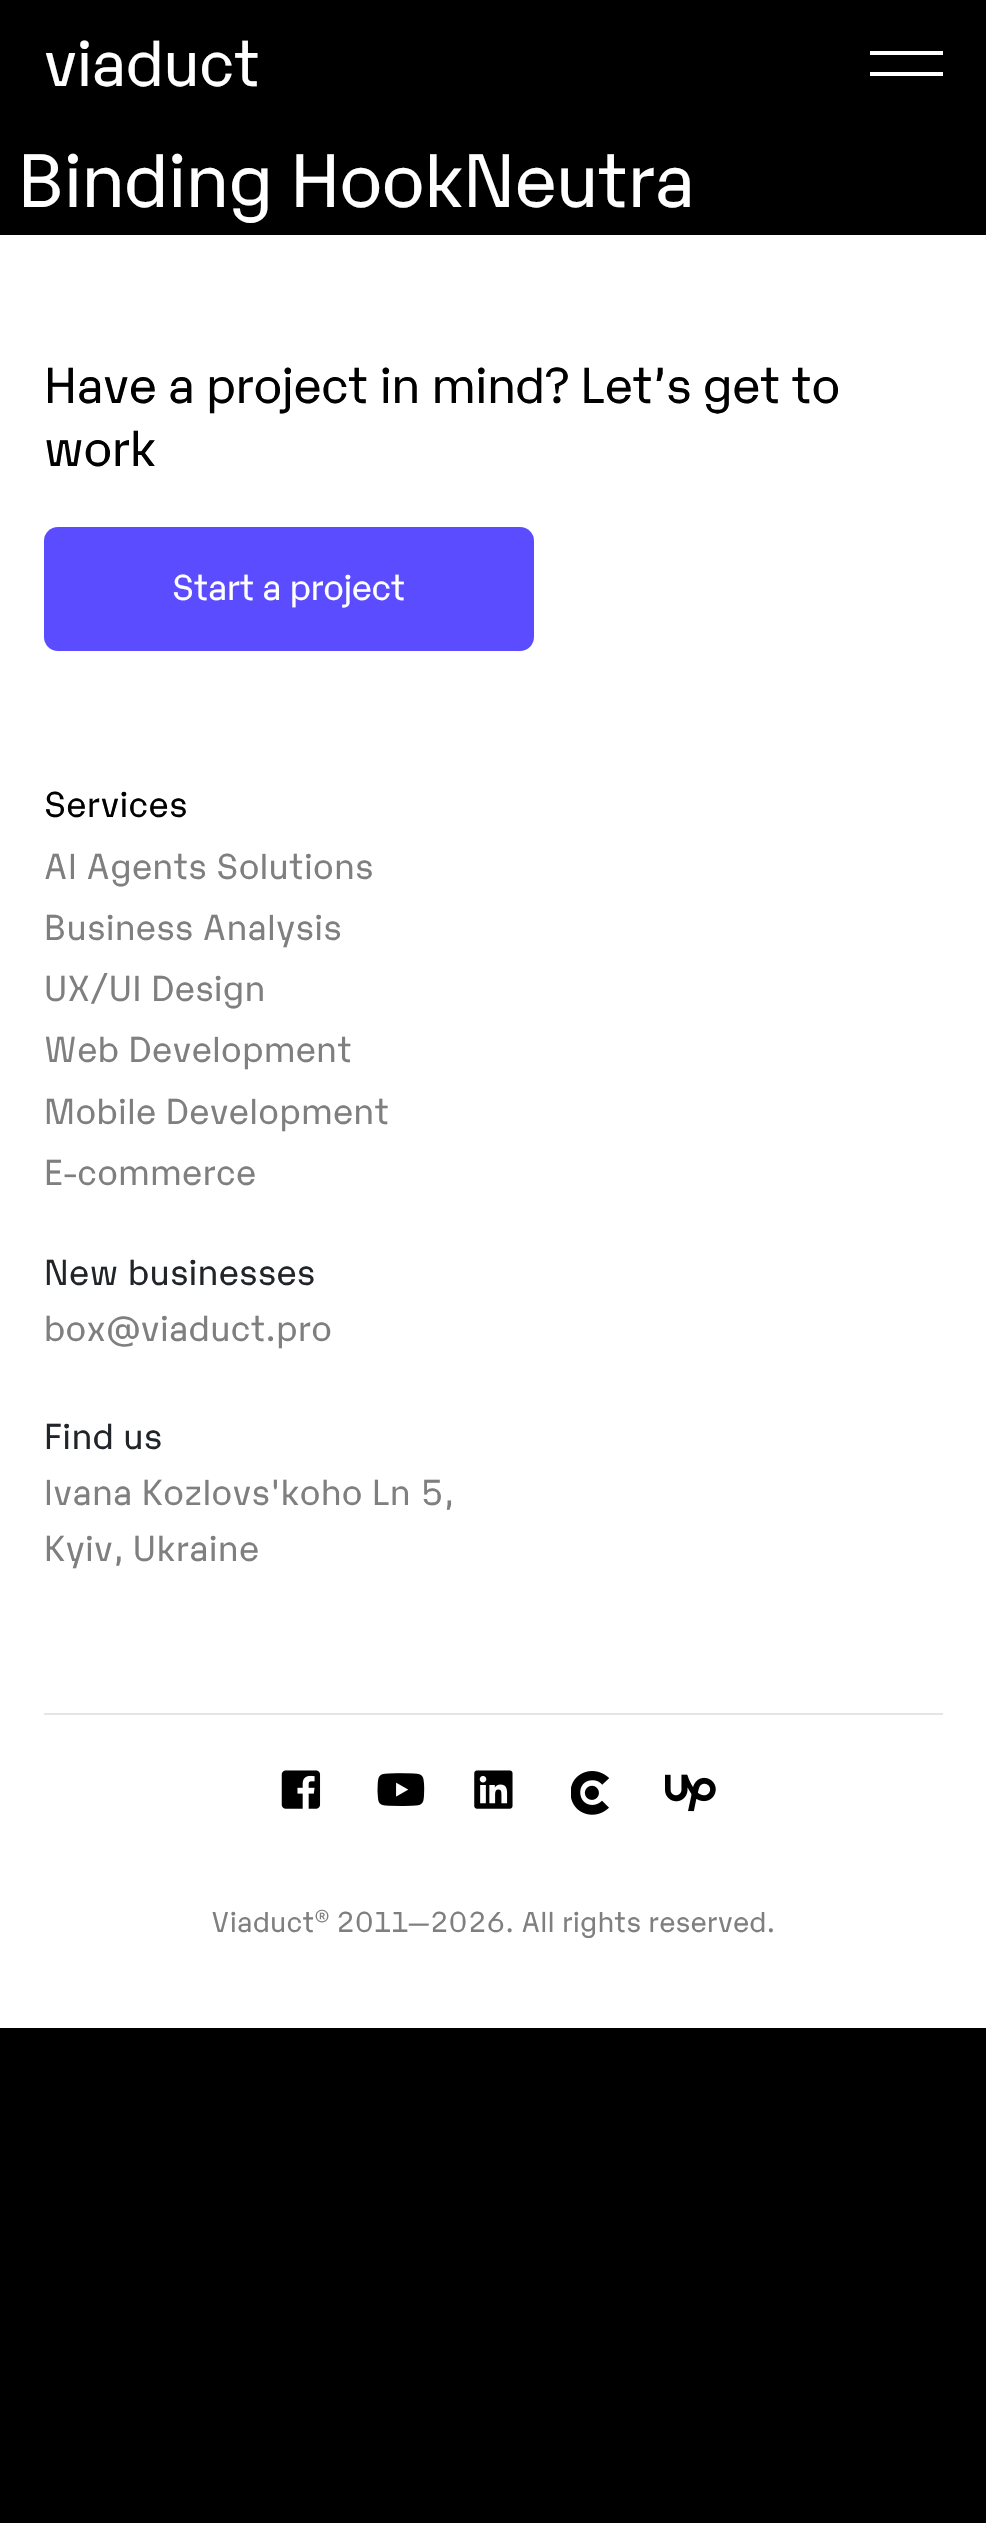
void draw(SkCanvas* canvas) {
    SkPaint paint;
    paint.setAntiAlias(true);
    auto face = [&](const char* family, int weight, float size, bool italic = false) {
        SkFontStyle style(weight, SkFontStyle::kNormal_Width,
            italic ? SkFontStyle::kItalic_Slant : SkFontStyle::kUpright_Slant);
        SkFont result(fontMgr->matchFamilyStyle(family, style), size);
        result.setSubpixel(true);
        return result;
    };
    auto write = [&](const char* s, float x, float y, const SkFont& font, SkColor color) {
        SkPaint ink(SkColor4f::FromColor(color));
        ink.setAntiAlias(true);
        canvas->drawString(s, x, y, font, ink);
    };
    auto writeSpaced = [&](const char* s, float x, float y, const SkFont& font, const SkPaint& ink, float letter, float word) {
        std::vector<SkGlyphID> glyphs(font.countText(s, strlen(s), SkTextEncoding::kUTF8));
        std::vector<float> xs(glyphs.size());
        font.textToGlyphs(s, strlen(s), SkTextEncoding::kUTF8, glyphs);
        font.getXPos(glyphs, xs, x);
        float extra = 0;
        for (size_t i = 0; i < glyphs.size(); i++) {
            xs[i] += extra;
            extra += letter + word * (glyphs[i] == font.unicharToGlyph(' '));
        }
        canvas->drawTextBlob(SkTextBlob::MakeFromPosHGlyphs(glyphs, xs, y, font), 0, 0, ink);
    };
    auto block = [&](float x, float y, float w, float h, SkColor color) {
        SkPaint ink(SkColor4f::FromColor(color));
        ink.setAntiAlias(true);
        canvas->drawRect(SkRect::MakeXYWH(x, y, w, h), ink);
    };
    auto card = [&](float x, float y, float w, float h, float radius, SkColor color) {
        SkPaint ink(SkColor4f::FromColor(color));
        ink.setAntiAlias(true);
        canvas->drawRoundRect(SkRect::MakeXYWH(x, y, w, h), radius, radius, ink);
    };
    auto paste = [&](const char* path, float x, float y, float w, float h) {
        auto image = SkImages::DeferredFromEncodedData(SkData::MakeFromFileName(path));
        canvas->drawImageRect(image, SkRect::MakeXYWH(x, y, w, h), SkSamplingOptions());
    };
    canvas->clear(SK_ColorBLACK);
    auto kFont1 = face("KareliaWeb", 400, 63);
    write("viaduct", 44, 86, kFont1, SK_ColorWHITE);
    block(870, 51, 73, 4, SK_ColorWHITE);
    block(870, 72, 73, 4, SK_ColorWHITE);
    auto kFont2 = face("KareliaWeb", 400, 73.5f);
    write("Binding HookNeutra", 18, 207, kFont2, SK_ColorWHITE);
    block(0, 235, 986, 1793, SK_ColorWHITE);
    auto kFont3 = face("KareliaWeb", 400, 49);
    write("Have a project in mind? Let’s get to", 44, 403, kFont3, SK_ColorBLACK);
    write("work", 44, 466, kFont3, SK_ColorBLACK);
    card(44, 527, 490, 124, 14, SkColorSetRGB(91, 77, 255));
    auto kFont4 = face("KareliaWeb", 400, 35);
    write("Start a project", 172, 600, kFont4, SK_ColorWHITE);
    paint.setColor(SK_ColorBLACK);
    writeSpaced("Services", 44, 817, kFont4, paint, 0.7f, 0);
    paint.setColor(SkColorSetRGB(127, 127, 127));
    writeSpaced("AI Agents Solutions", 44, 879, kFont4, paint, 0.7f, 0);
    writeSpaced("Business Analysis", 44, 940, kFont4, paint, 0.7f, 0);
    writeSpaced("UX/UI Design", 44, 1001, kFont4, paint, 0.7f, 0);
    writeSpaced("Web Development", 44, 1062, kFont4, paint, 0.7f, 0);
    writeSpaced("Mobile Development", 44, 1124, kFont4, paint, 0.7f, 0);
    writeSpaced("E-commerce", 44, 1185, kFont4, paint, 0.7f, 0);
    paint.setColor(SkColorSetRGB(33, 37, 41));
    writeSpaced("New businesses", 44, 1285, kFont4, paint, 0.7f, 0);
    paint.setColor(SkColorSetRGB(127, 127, 127));
    writeSpaced("box@viaduct.pro", 44, 1341, kFont4, paint, 0.7f, 0);
    paint.setColor(SkColorSetRGB(33, 37, 41));
    writeSpaced("Find us", 44, 1449, kFont4, paint, 0.7f, 0);
    paint.setColor(SkColorSetRGB(127, 127, 127));
    writeSpaced("Ivana Kozlovs'koho Ln 5,", 44, 1505, kFont4, paint, 0.7f, 0);
    writeSpaced("Kyiv, Ukraine", 44, 1561, kFont4, paint, 0.7f, 0);
    block(44, 1713, 899, 2, SkColorSetRGB(229, 229, 229));
    paste("pic1.png", 281, 1770, 40, 39);
    paste("pic2.png", 377, 1773, 48, 33);
    paste("pic3.png", 474, 1770, 39, 39);
    paste("pic4.png", 571, 1771, 38, 44);
    paste("pic5.png", 665, 1774, 51, 38);
    auto kFont5 = face("KareliaWeb", 400, 28);
    writeSpaced("Viaduct", 211, 1932, kFont5, paint, 0.55f, 0);
    auto kFont6 = face("KareliaWeb", 400, 14);
    writeSpaced("®", 315, 1921, kFont6, paint, 0.55f, 0);
    writeSpaced("2011—2026. All rights reserved.", 336, 1932, kFont5, paint, 0.55f, 0);
}
